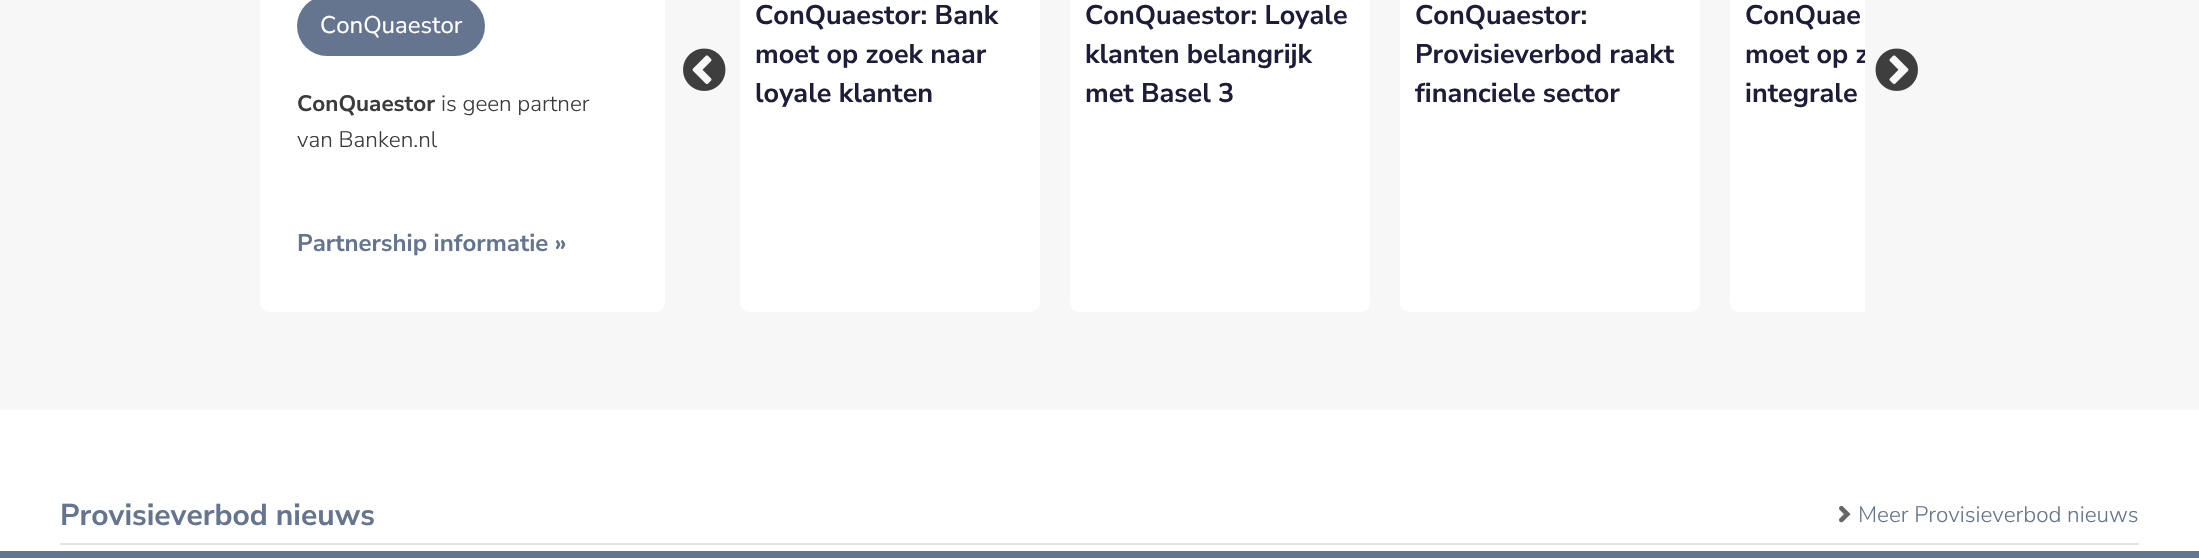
void draw(SkCanvas* canvas) {
    SkPaint paint;
    paint.setAntiAlias(true);
    auto face = [&](const char* family, int weight, float size, bool italic = false) {
        SkFontStyle style(weight, SkFontStyle::kNormal_Width,
            italic ? SkFontStyle::kItalic_Slant : SkFontStyle::kUpright_Slant);
        SkFont result(fontMgr->matchFamilyStyle(family, style), size);
        result.setSubpixel(true);
        return result;
    };
    auto write = [&](const char* s, float x, float y, const SkFont& font, SkColor color) {
        SkPaint ink(SkColor4f::FromColor(color));
        ink.setAntiAlias(true);
        canvas->drawString(s, x, y, font, ink);
    };
    auto block = [&](float x, float y, float w, float h, SkColor color) {
        SkPaint ink(SkColor4f::FromColor(color));
        ink.setAntiAlias(true);
        canvas->drawRect(SkRect::MakeXYWH(x, y, w, h), ink);
    };
    auto card = [&](float x, float y, float w, float h, float radius, SkColor color) {
        SkPaint ink(SkColor4f::FromColor(color));
        ink.setAntiAlias(true);
        canvas->drawRoundRect(SkRect::MakeXYWH(x, y, w, h), radius, radius, ink);
    };
    auto paste = [&](const char* path, float x, float y, float w, float h) {
        auto image = SkImages::DeferredFromEncodedData(SkData::MakeFromFileName(path));
        canvas->drawImageRect(image, SkRect::MakeXYWH(x, y, w, h), SkSamplingOptions());
    };
    canvas->clear(SK_ColorWHITE);
    block(0, 0, 2199, 410, SkColorSetRGB(247, 247, 247));
    card(260, -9, 405, 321, 9, SK_ColorWHITE);
    card(297, -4, 188, 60, 30, SkColorSetRGB(101, 117, 143));
    auto kFont1 = face("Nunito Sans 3", 200, 24);
    write("ConQuaestor", 320, 33, kFont1, SK_ColorWHITE);
    auto kFont2 = face("Nunito Sans", 200, 22.5f);
    write("ConQuaestor", 297, 111, kFont2, SkColorSetRGB(60, 60, 60));
    auto kFont3 = face("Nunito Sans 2", 200, 22.5f);
    write("is geen partner", 441, 111, kFont3, SkColorSetRGB(60, 60, 60));
    write("van Banken.nl", 297, 147, kFont3, SkColorSetRGB(60, 60, 60));
    auto kFont4 = face("Nunito Sans", 200, 24);
    write("Partnership informatie »", 297, 251, kFont4, SkColorSetRGB(101, 117, 143));
    paste("pic1.png", 683, 48, 43, 43);
    card(740, -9, 300, 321, 9, SK_ColorWHITE);
    auto kFont5 = face("Nunito Sans", 200, 27);
    write("ConQuaestor: Bank", 755, 24, kFont5, SkColorSetRGB(29, 29, 57));
    write("moet op zoek naar", 755, 63, kFont5, SkColorSetRGB(29, 29, 57));
    write("loyale klanten", 755, 102, kFont5, SkColorSetRGB(29, 29, 57));
    card(1070, -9, 300, 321, 9, SK_ColorWHITE);
    write("ConQuaestor: Loyale", 1085, 24, kFont5, SkColorSetRGB(29, 29, 57));
    write("klanten belangrijk", 1085, 63, kFont5, SkColorSetRGB(29, 29, 57));
    write("met Basel 3", 1085, 102, kFont5, SkColorSetRGB(29, 29, 57));
    card(1400, -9, 300, 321, 9, SK_ColorWHITE);
    write("ConQuaestor:", 1415, 24, kFont5, SkColorSetRGB(29, 29, 57));
    write("Provisieverbod raakt", 1415, 63, kFont5, SkColorSetRGB(29, 29, 57));
    write("financiele sector", 1415, 102, kFont5, SkColorSetRGB(29, 29, 57));
    paint.setColor(SK_ColorWHITE);
    canvas->drawPath(SkPathBuilder().moveTo(1739, -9).lineTo(1865, -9).lineTo(1865, 312).lineTo(1739, 312).cubicTo(1734, 312, 1730, 308, 1730, 303).lineTo(1730, 0).cubicTo(1730, -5, 1734, -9, 1739, -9).close().detach(), paint);
    write("ConQuae", 1745, 24, kFont5, SkColorSetRGB(29, 29, 57));
    canvas->save();
    canvas->clipRect(SkRect::MakeXYWH(740, 0, 1125, 312));
    write("moet op z", 1745, 63, kFont5, SkColorSetRGB(29, 29, 57));
    canvas->restore();
    write("integrale", 1745, 102, kFont5, SkColorSetRGB(29, 29, 57));
    paste("pic2.png", 1875, 48, 43, 43);
    block(60, 543, 2079, 2, SkColorSetRGB(226, 228, 230));
    auto kFont6 = face("Nunito Sans", 200, 30);
    write("Provisieverbod nieuws", 60, 525, kFont6, SkColorSetRGB(101, 117, 143));
    paste("pic3.png", 1839, 505, 12, 18);
    write("Meer Provisieverbod nieuws", 1858, 522, kFont3, SkColorSetRGB(101, 117, 143));
    block(0, 551, 2199, 7, SkColorSetRGB(101, 117, 143));
}
